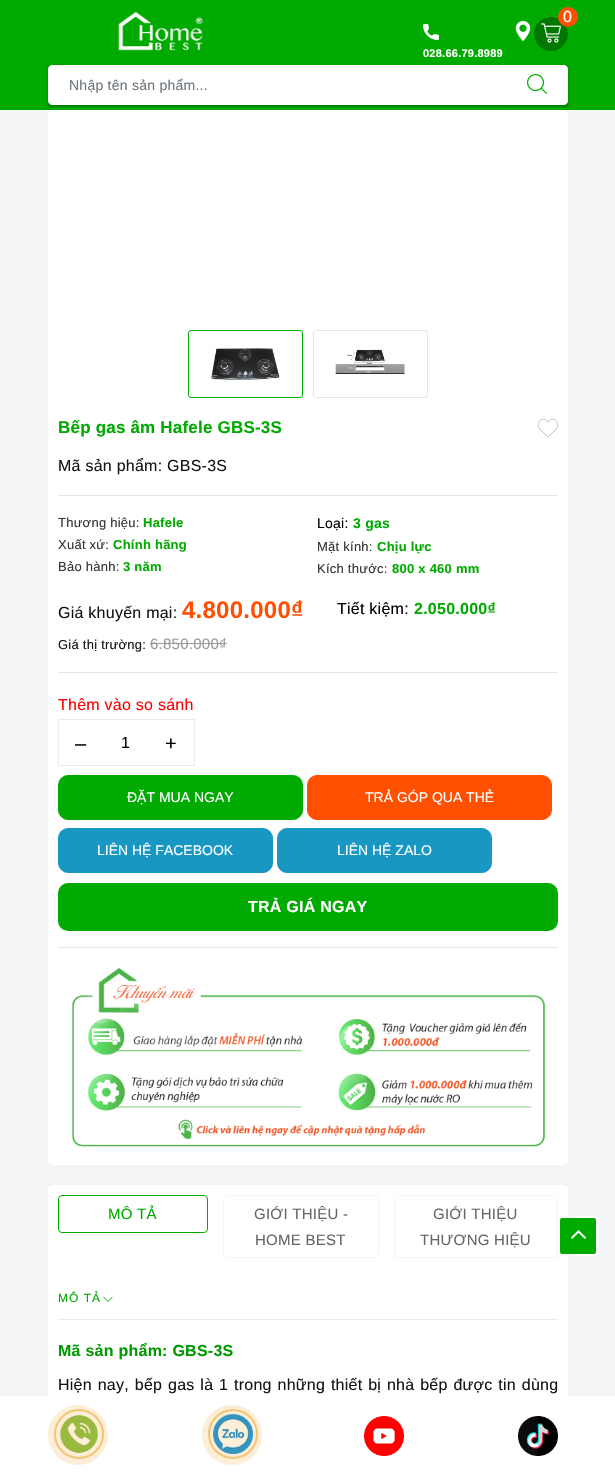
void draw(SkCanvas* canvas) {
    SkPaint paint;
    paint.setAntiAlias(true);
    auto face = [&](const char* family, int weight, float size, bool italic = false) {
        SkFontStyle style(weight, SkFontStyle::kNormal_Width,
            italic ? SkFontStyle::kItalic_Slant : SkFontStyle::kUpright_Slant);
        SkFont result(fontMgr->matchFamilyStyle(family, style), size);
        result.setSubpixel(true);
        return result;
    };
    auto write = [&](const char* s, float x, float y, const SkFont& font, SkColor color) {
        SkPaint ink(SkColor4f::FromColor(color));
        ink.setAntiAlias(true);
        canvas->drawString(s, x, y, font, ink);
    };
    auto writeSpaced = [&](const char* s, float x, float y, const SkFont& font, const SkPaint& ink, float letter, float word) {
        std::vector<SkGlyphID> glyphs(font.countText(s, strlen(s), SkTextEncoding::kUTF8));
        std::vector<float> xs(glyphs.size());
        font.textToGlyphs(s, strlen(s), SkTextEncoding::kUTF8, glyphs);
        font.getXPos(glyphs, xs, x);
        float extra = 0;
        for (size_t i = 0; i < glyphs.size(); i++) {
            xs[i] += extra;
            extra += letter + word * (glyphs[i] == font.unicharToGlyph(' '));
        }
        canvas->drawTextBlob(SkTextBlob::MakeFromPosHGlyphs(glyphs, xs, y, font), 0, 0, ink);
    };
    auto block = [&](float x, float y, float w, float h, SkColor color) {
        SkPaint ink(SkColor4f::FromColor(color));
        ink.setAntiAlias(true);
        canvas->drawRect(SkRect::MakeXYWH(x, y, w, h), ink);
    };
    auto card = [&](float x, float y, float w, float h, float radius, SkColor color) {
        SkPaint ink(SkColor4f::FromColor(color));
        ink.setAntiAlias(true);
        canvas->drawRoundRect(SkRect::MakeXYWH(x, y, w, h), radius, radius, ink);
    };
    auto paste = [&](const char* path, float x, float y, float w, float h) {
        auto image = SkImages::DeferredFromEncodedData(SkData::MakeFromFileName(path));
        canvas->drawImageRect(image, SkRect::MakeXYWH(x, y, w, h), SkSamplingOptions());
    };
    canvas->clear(SkColorSetRGB(243, 245, 247));
    card(48, -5, 520, 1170, 5, SK_ColorWHITE);
    block(0, 0, 615, 110, SkColorSetRGB(0, 170, 0));
    paste("pic1.png", 118, 11, 85, 40);
    paste("pic2.png", 515, 21, 16, 20);
    paint.setColor(SkColorSetRGB(0, 119, 0));
    canvas->drawCircle(551, 34, 17, paint);
    paste("pic3.png", 541, 23, 20, 20);
    paint.setColor(SkColorSetRGB(255, 80, 1));
    canvas->drawCircle(568, 17, 10, paint);
    auto kFont1 = face("Liberation Sans", 400, 16);
    paint.setColor(SK_ColorWHITE);
    writeSpaced("0", 563, 22, kFont1, paint, 0.25f, 0);
    paste("pic4.png", 423, 24, 16, 16);
    auto kFont2 = face("Liberation Sans", 700, 11);
    writeSpaced("028.66.79.8989", 423, 57, kFont2, paint, 0.25f, 0);
    paint.setColor(SkColorSetARGB(61, 0, 0, 0));
    paint.setMaskFilter(SkMaskFilter::MakeBlur(kNormal_SkBlurStyle, 1));
    canvas->drawRect(SkRect::MakeXYWH(48, 67, 520, 40), paint);
    paint.setMaskFilter(nullptr);
    paint.setColor(SkColorSetARGB(31, 0, 0, 0));
    paint.setMaskFilter(SkMaskFilter::MakeBlur(kNormal_SkBlurStyle, 1));
    canvas->drawRect(SkRect::MakeXYWH(48, 65, 520, 40), paint);
    paint.setMaskFilter(nullptr);
    paint.setColor(SK_ColorWHITE);
    canvas->drawPath(SkPathBuilder().moveTo(52, 65.5f).lineTo(506.5f, 65.5f).lineTo(506.5f, 104.5f).lineTo(52, 104.5f).cubicTo(50, 104.5f, 48.5f, 103, 48.5f, 101).lineTo(48.5f, 69).cubicTo(48.5f, 67, 50, 65.5f, 52, 65.5f).close().detach(), paint);
    paint.setStyle(SkPaint::kStroke_Style);
    paint.setStrokeWidth(1);
    canvas->drawPath(SkPathBuilder().moveTo(52, 65.5f).lineTo(506.5f, 65.5f).lineTo(506.5f, 104.5f).lineTo(52, 104.5f).cubicTo(50, 104.5f, 48.5f, 103, 48.5f, 101).lineTo(48.5f, 69).cubicTo(48.5f, 67, 50, 65.5f, 52, 65.5f).close().detach(), paint);
    auto kFont3 = face("Liberation Sans", 400, 14);
    paint.setStyle(SkPaint::kFill_Style);
    paint.setColor(SkColorSetRGB(108, 117, 125));
    writeSpaced("Nhập tên sản phẩm...", 69, 90, kFont3, paint, 0.25f, 0);
    paint.setColor(SK_ColorWHITE);
    canvas->drawPath(SkPathBuilder().moveTo(506.5f, 65.5f).lineTo(564, 65.5f).cubicTo(566, 65.5f, 567.5f, 67, 567.5f, 69).lineTo(567.5f, 101).cubicTo(567.5f, 103, 566, 104.5f, 564, 104.5f).lineTo(506.5f, 104.5f).close().detach(), paint);
    paint.setStyle(SkPaint::kStroke_Style);
    canvas->drawPath(SkPathBuilder().moveTo(506.5f, 65.5f).lineTo(564, 65.5f).cubicTo(566, 65.5f, 567.5f, 67, 567.5f, 69).lineTo(567.5f, 101).cubicTo(567.5f, 103, 566, 104.5f, 564, 104.5f).lineTo(506.5f, 104.5f).close().detach(), paint);
    paste("pic5.png", 527, 74, 20, 20);
    paint.setColor(SkColorSetRGB(0, 170, 0));
    canvas->drawRoundRect(SkRect::MakeXYWH(188.5f, 330.5f, 114, 67), 2.5f, 2.5f, paint);
    paste("pic6.png", 211, 348, 69, 33);
    paint.setColor(SkColorSetRGB(230, 230, 230));
    canvas->drawRoundRect(SkRect::MakeXYWH(313.5f, 330.5f, 114, 67), 2.5f, 2.5f, paint);
    paste("pic7.png", 335, 349, 70, 25);
    auto kFont4 = face("Liberation Sans", 700, 17);
    paint.setStyle(SkPaint::kFill_Style);
    paint.setColor(SkColorSetRGB(0, 170, 0));
    writeSpaced("Bếp gas âm Hafele GBS-3S", 58, 433, kFont4, paint, 0.2f, 0);
    paste("pic8.png", 538, 418, 20, 20);
    paint.setColor(SkColorSetRGB(20, 20, 20));
    writeSpaced("Mã sản phẩm: GBS-3S", 58, 471, kFont1, paint, 0.25f, 0);
    block(58, 495, 500, 1, SkColorSetRGB(230, 230, 230));
    auto kFont5 = face("Liberation Sans", 400, 13);
    paint.setColor(SkColorSetRGB(51, 51, 51));
    writeSpaced("Thương hiệu:", 58, 527, kFont5, paint, 0.25f, 0);
    auto kFont6 = face("Liberation Sans", 700, 13);
    paint.setColor(SkColorSetRGB(0, 170, 0));
    writeSpaced("Hafele", 143, 527, kFont6, paint, 0.25f, 0);
    paint.setColor(SkColorSetRGB(51, 51, 51));
    writeSpaced("Xuất xứ:", 58, 549, kFont5, paint, 0.25f, 0);
    paint.setColor(SkColorSetRGB(0, 170, 0));
    writeSpaced("Chính hãng", 113, 549, kFont6, paint, 0.25f, 0);
    paint.setColor(SkColorSetRGB(51, 51, 51));
    writeSpaced("Bảo hành:", 58, 571, kFont5, paint, 0.25f, 0);
    paint.setColor(SkColorSetRGB(0, 170, 0));
    writeSpaced("3 năm", 123, 571, kFont6, paint, 0.25f, 0);
    paint.setColor(SK_ColorBLACK);
    writeSpaced("Loại:", 317, 528, kFont3, paint, 0.25f, 0);
    auto kFont7 = face("Liberation Sans", 700, 14);
    paint.setColor(SkColorSetRGB(0, 170, 0));
    writeSpaced("3 gas", 353, 528, kFont7, paint, 0.25f, 0);
    paint.setColor(SkColorSetRGB(51, 51, 51));
    writeSpaced("Mặt kính:", 317, 551, kFont5, paint, 0.25f, 0);
    paint.setColor(SkColorSetRGB(0, 170, 0));
    writeSpaced("Chịu lực", 377, 551, kFont6, paint, 0.25f, 0);
    paint.setColor(SkColorSetRGB(51, 51, 51));
    writeSpaced("Kích thước:", 317, 573, kFont5, paint, 0.25f, 0);
    paint.setColor(SkColorSetRGB(0, 170, 0));
    writeSpaced("800 x 460 mm", 392, 573, kFont6, paint, 0.25f, 0);
    paint.setColor(SkColorSetRGB(20, 20, 20));
    writeSpaced("Giá khuyến mại:", 58, 618, kFont1, paint, 0.25f, 0);
    auto kFont8 = face("Liberation Sans", 700, 24);
    paint.setColor(SkColorSetRGB(255, 80, 1));
    writeSpaced("4.800.000₫", 182, 618, kFont8, paint, 0.25f, 0);
    paint.setColor(SkColorSetRGB(20, 20, 20));
    writeSpaced("Giá thị trường:", 58, 649, kFont5, paint, 0.25f, 0);
    auto kFont9 = face("Liberation Sans", 400, 15);
    paint.setColor(SkColorSetRGB(153, 153, 153));
    writeSpaced("6.850.000₫", 150, 649, kFont9, paint, 0.25f, 0);
    block(150, 643, 77, 1, SkColorSetRGB(153, 153, 153));
    paint.setColor(SK_ColorBLACK);
    writeSpaced("Tiết kiệm:", 337, 614, kFont1, paint, 0.25f, 0);
    auto kFont10 = face("Liberation Sans", 700, 16);
    paint.setColor(SkColorSetRGB(0, 170, 0));
    writeSpaced("2.050.000₫", 414, 614, kFont10, paint, 0.25f, 0);
    block(58, 672, 500, 1, SkColorSetRGB(230, 230, 230));
    paint.setColor(SkColorSetRGB(255, 0, 0));
    writeSpaced("Thêm vào so sánh", 58, 710, kFont1, paint, 0.25f, 0);
    paint.setStyle(SkPaint::kStroke_Style);
    paint.setColor(SkColorSetRGB(235, 235, 235));
    canvas->drawRect(SkRect::MakeXYWH(58.5f, 719.5f, 136, 46), paint);
    auto kFont11 = face("Liberation Sans", 400, 20);
    paint.setStyle(SkPaint::kFill_Style);
    paint.setColor(SK_ColorBLACK);
    writeSpaced("–", 75, 750, kFont11, paint, 0.25f, 0);
    writeSpaced("1", 121, 748, kFont1, paint, 0.25f, 0);
    writeSpaced("+", 165, 750, kFont11, paint, 0.25f, 0);
    paint.setColor(SkColorSetRGB(0, 170, 0));
    canvas->drawRoundRect(SkRect::MakeXYWH(58.5f, 775.5f, 244, 44), 9.5f, 9.5f, paint);
    paint.setStyle(SkPaint::kStroke_Style);
    canvas->drawRoundRect(SkRect::MakeXYWH(58.5f, 775.5f, 244, 44), 9.5f, 9.5f, paint);
    write("ĐẶT MUA NGAY", 127, 802, kFont3, SK_ColorWHITE);
    paint.setStyle(SkPaint::kFill_Style);
    paint.setColor(SkColorSetRGB(255, 80, 1));
    canvas->drawRoundRect(SkRect::MakeXYWH(307.5f, 775.5f, 244, 44), 9.5f, 9.5f, paint);
    paint.setStyle(SkPaint::kStroke_Style);
    canvas->drawRoundRect(SkRect::MakeXYWH(307.5f, 775.5f, 244, 44), 9.5f, 9.5f, paint);
    write("TRẢ GÓP QUA THẺ", 365, 802, kFont3, SK_ColorWHITE);
    paint.setStyle(SkPaint::kFill_Style);
    paint.setColor(SkColorSetRGB(25, 151, 195));
    canvas->drawRoundRect(SkRect::MakeXYWH(58.5f, 828.5f, 214, 44), 9.5f, 9.5f, paint);
    paint.setStyle(SkPaint::kStroke_Style);
    canvas->drawRoundRect(SkRect::MakeXYWH(58.5f, 828.5f, 214, 44), 9.5f, 9.5f, paint);
    write("LIÊN HỆ FACEBOOK", 97, 855, kFont3, SK_ColorWHITE);
    paint.setStyle(SkPaint::kFill_Style);
    canvas->drawRoundRect(SkRect::MakeXYWH(277.5f, 828.5f, 214, 44), 9.5f, 9.5f, paint);
    paint.setStyle(SkPaint::kStroke_Style);
    canvas->drawRoundRect(SkRect::MakeXYWH(277.5f, 828.5f, 214, 44), 9.5f, 9.5f, paint);
    write("LIÊN HỆ ZALO", 337, 855, kFont3, SK_ColorWHITE);
    card(58, 883, 500, 48, 10, SkColorSetRGB(0, 170, 0));
    paint.setStyle(SkPaint::kFill_Style);
    paint.setColor(SK_ColorWHITE);
    writeSpaced("TRẢ GIÁ NGAY", 248, 912, kFont10, paint, 0.25f, 0);
    block(58, 947, 500, 1, SkColorSetRGB(230, 230, 230));
    paste("pic9.png", 71, 967, 475, 180);
    card(48, 1185, 520, 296, 5, SK_ColorWHITE);
    paint.setStyle(SkPaint::kStroke_Style);
    paint.setColor(SkColorSetRGB(0, 170, 0));
    canvas->drawRoundRect(SkRect::MakeXYWH(58.5f, 1195.5f, 149, 37), 3.5f, 3.5f, paint);
    paint.setStyle(SkPaint::kFill_Style);
    writeSpaced("MÔ TẢ", 108, 1219, kFont9, paint, 0.25f, 0);
    paint.setStyle(SkPaint::kStroke_Style);
    paint.setColor(SkColorSetRGB(243, 245, 247));
    canvas->drawRoundRect(SkRect::MakeXYWH(223.5f, 1195.5f, 155, 62), 3.5f, 3.5f, paint);
    paint.setStyle(SkPaint::kFill_Style);
    paint.setColor(SkColorSetRGB(102, 102, 102));
    writeSpaced("GIỚI THIỆU -", 254, 1219, kFont9, paint, 0.25f, 0);
    writeSpaced("HOME BEST", 255, 1245, kFont9, paint, 0.25f, 0);
    paint.setStyle(SkPaint::kStroke_Style);
    paint.setColor(SkColorSetRGB(243, 245, 247));
    canvas->drawRoundRect(SkRect::MakeXYWH(394.5f, 1195.5f, 163, 62), 3.5f, 3.5f, paint);
    paint.setStyle(SkPaint::kFill_Style);
    paint.setColor(SkColorSetRGB(102, 102, 102));
    writeSpaced("GIỚI THIỆU", 433, 1219, kFont9, paint, 0.25f, 0);
    writeSpaced("THƯƠNG HIỆU", 420, 1245, kFont9, paint, 0.25f, 0);
    block(58, 1319, 500, 1, SkColorSetRGB(235, 235, 235));
    auto kFont12 = face("Liberation Sans", 400, 12);
    paint.setColor(SkColorSetRGB(0, 170, 0));
    writeSpaced("MÔ TẢ", 58, 1302, kFont12, paint, 1, 0);
    canvas->save();
    canvas->clipPath(SkPathBuilder().moveTo(112.5f, 1296.5f).lineTo(112.5f, 1302).lineTo(102.5f, 1302).lineTo(102.5f, 1296.5f).close().detach(), true);
    paint.setStyle(SkPaint::kStroke_Style);
    paint.setStrokeCap(SkPaint::kRound_Cap);
    canvas->drawPath(SkPathBuilder().moveTo(112.5f, 1297).lineTo(108, 1301.5f).lineTo(103.5f, 1297).detach(), paint);
    canvas->restore();
    paint.setStyle(SkPaint::kFill_Style);
    paint.setColor(SkColorSetRGB(0, 153, 0));
    writeSpaced("Mã sản phẩm: GBS-3S", 58, 1356, kFont10, paint, 0.25f, 0);
    paint.setColor(SkColorSetRGB(20, 20, 20));
    writeSpaced("Hiện nay, bếp gas là 1 trong những thiết bị nhà bếp được tin dùng", 58, 1390, kFont1, paint, 0.25f, 1.1f);
    paint.setColor(SkColorSetRGB(0, 170, 0));
    canvas->drawRoundRect(SkRect::MakeXYWH(559, 1217, 38, 38), 3, 3, paint);
    paint.setStyle(SkPaint::kStroke_Style);
    paint.setStrokeWidth(2);
    paint.setStrokeCap(SkPaint::kButt_Cap);
    paint.setColor(SK_ColorWHITE);
    canvas->drawRoundRect(SkRect::MakeXYWH(559, 1217, 38, 38), 3, 3, paint);
    paste("pic10.png", 571, 1230, 15, 9);
    block(0, 1396, 615, 80, SK_ColorWHITE);
    paste("pic11.png", 60, 1415, 38, 38);
    paint.setColor(SkColorSetRGB(246, 206, 136));
    canvas->drawCircle(79, 1434, 24, paint);
    paint.setStyle(SkPaint::kFill_Style);
    paint.setColor(SkColorSetARGB(43, 237, 156, 16));
    canvas->drawCircle(78, 1435, 30, paint);
    paste("pic12.png", 213, 1414, 40, 40);
    paint.setStyle(SkPaint::kStroke_Style);
    paint.setColor(SkColorSetRGB(246, 206, 136));
    canvas->drawCircle(233, 1434, 24, paint);
    paint.setStyle(SkPaint::kFill_Style);
    paint.setColor(SkColorSetARGB(43, 237, 156, 16));
    canvas->drawCircle(232, 1435, 30, paint);
    paste("pic13.png", 364, 1416, 40, 40);
    paste("pic14.png", 518, 1416, 40, 40);
}
